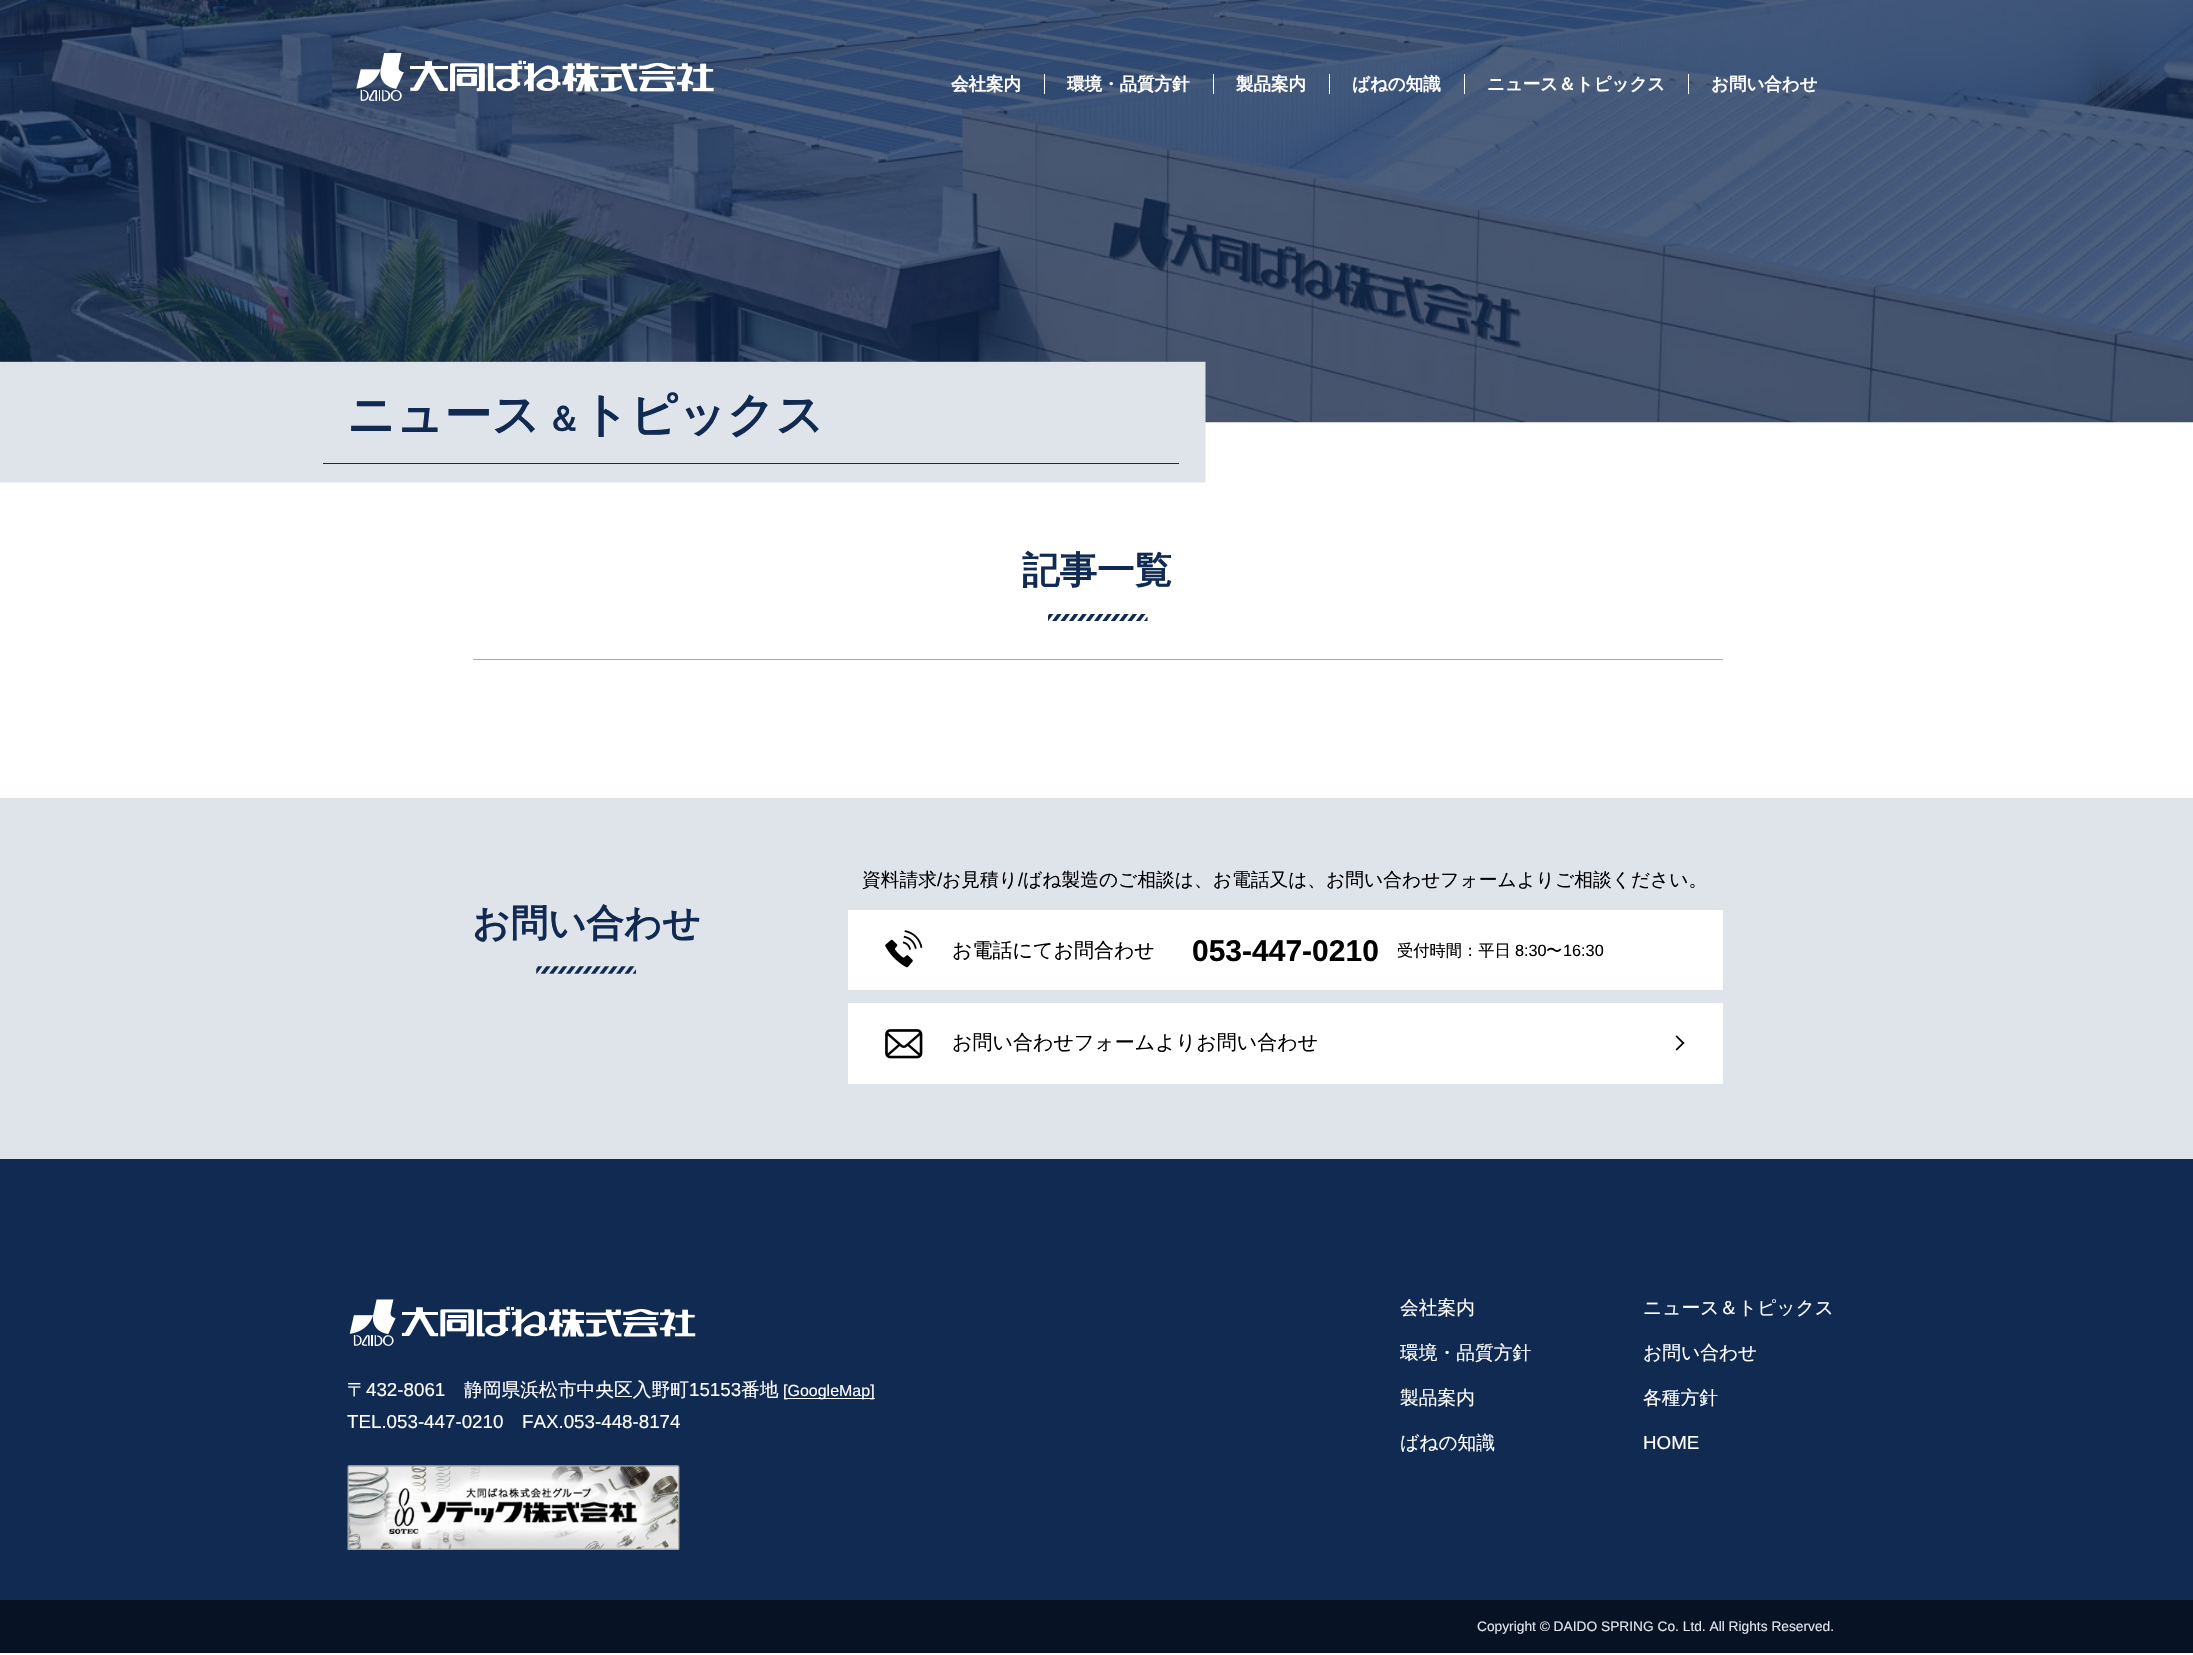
void draw(SkCanvas* canvas) {
    SkPaint paint;
    paint.setAntiAlias(true);
    auto face = [&](const char* family, int weight, float size, bool italic = false) {
        SkFontStyle style(weight, SkFontStyle::kNormal_Width,
            italic ? SkFontStyle::kItalic_Slant : SkFontStyle::kUpright_Slant);
        SkFont result(fontMgr->matchFamilyStyle(family, style), size);
        result.setSubpixel(true);
        return result;
    };
    auto write = [&](const char* s, float x, float y, const SkFont& font, SkColor color) {
        SkPaint ink(SkColor4f::FromColor(color));
        ink.setAntiAlias(true);
        canvas->drawString(s, x, y, font, ink);
    };
    auto block = [&](float x, float y, float w, float h, SkColor color) {
        SkPaint ink(SkColor4f::FromColor(color));
        ink.setAntiAlias(true);
        canvas->drawRect(SkRect::MakeXYWH(x, y, w, h), ink);
    };
    auto paste = [&](const char* path, float x, float y, float w, float h) {
        auto image = SkImages::DeferredFromEncodedData(SkData::MakeFromFileName(path));
        canvas->drawImageRect(image, SkRect::MakeXYWH(x, y, w, h), SkSamplingOptions());
    };
    canvas->clear(SK_ColorWHITE);
    paste("pic1.png", 0, 0, 2193, 483);
    paste("pic2.png", 356, 53, 358, 49);
    auto kFont1 = face("WenQuanYi Zen Hei", 700, 17.5f);
    write("会社案内", 951, 90, kFont1, SK_ColorWHITE);
    block(1044, 74, 1, 20, SK_ColorWHITE);
    write("環境・品質方針", 1067, 90, kFont1, SK_ColorWHITE);
    block(1213, 74, 1, 20, SK_ColorWHITE);
    write("製品案内", 1236, 90, kFont1, SK_ColorWHITE);
    block(1329, 74, 1, 20, SK_ColorWHITE);
    write("ばねの知識", 1352, 90, kFont1, SK_ColorWHITE);
    block(1464, 74, 1, 20, SK_ColorWHITE);
    write("ニュース＆トピックス", 1487, 90, kFont1, SK_ColorWHITE);
    block(1688, 74, 1, 20, SK_ColorWHITE);
    write("お問い合わせ", 1711, 90, kFont1, SK_ColorWHITE);
    auto kFont2 = face("WenQuanYi Zen Hei", 700, 47.5f);
    write("ニュース", 347, 431, kFont2, SkColorSetRGB(16, 42, 82));
    auto kFont3 = face("WenQuanYi Zen Hei", 700, 35);
    write("＆", 546, 431, kFont3, SkColorSetRGB(16, 42, 82));
    write("トピックス", 581, 431, kFont2, SkColorSetRGB(16, 42, 82));
    block(323, 463, 856, 1, SkColorSetRGB(16, 42, 82));
    paste("pic3.png", 1048, 614, 100, 7);
    auto kFont4 = face("WenQuanYi Zen Hei", 700, 37.5f);
    write("記事一覧", 1022, 583, kFont4, SkColorSetRGB(16, 42, 82));
    block(473, 659, 1250, 1, SkColorSetRGB(171, 171, 171));
    block(0, 1600, 2193, 53, SkColorSetRGB(7, 19, 37));
    block(0, 798, 2193, 361, SkColorSetRGB(223, 227, 234));
    auto kFont5 = face("WenQuanYi Zen Hei", 500, 18.75f);
    write("資料請求", 862, 886, kFont5, SK_ColorBLACK);
    auto kFont6 = face("Liberation Sans", 400, 18.75f);
    write("/", 937, 886, kFont6, SK_ColorBLACK);
    write("お見積り", 942, 886, kFont5, SK_ColorBLACK);
    write("/", 1018, 886, kFont6, SK_ColorBLACK);
    write("ばね製造のご相談は、お電話又は、お問い合わせフォームよりご相談ください。", 1023, 886, kFont5, SK_ColorBLACK);
    paste("pic4.png", 536, 966, 100, 8);
    write("お問い合わせ", 472, 936, kFont4, SkColorSetRGB(16, 42, 82));
    block(848, 910, 875, 80, SK_ColorWHITE);
    paste("pic5.png", 885, 930, 38, 38);
    auto kFont7 = face("WenQuanYi Zen Hei", 500, 20);
    write("お電話にてお問合わせ", 952, 957, kFont7, SK_ColorBLACK);
    auto kFont8 = face("Liberation Sans", 700, 30);
    write("053-447-0210", 1192, 961, kFont8, SK_ColorBLACK);
    auto kFont9 = face("WenQuanYi Zen Hei", 500, 16.25f);
    write("受付時間：平日", 1397, 956, kFont9, SK_ColorBLACK);
    auto kFont10 = face("Liberation Sans", 400, 16.25f);
    write("8:30", 1515, 956, kFont10, SK_ColorBLACK);
    write("〜", 1546, 956, kFont9, SK_ColorBLACK);
    write("16:30", 1563, 956, kFont10, SK_ColorBLACK);
    block(848, 1003, 875, 81, SK_ColorWHITE);
    paste("pic6.png", 1675, 1035, 10, 16);
    paste("pic7.png", 885, 1029, 38, 30);
    write("お問い合わせフォームよりお問い合わせ", 952, 1049, kFont7, SK_ColorBLACK);
    block(0, 1159, 2193, 441, SkColorSetRGB(16, 42, 82));
    paste("pic8.png", 349, 1299, 347, 48);
    write("〒", 347, 1396, kFont5, SK_ColorWHITE);
    write("432-8061", 366, 1396, kFont6, SK_ColorWHITE);
    write("静岡県浜松市中央区入野町", 464, 1396, kFont5, SK_ColorWHITE);
    write("15153", 689, 1396, kFont6, SK_ColorWHITE);
    write("番地", 741, 1396, kFont5, SK_ColorWHITE);
    block(784, 1398, 91, 1, SK_ColorWHITE);
    auto kFont11 = face("Liberation Sans", 400, 16);
    write("[GoogleMap]", 783, 1396, kFont11, SK_ColorWHITE);
    write("TEL.053-447-0210", 347, 1428, kFont6, SK_ColorWHITE);
    write("FAX.053-448-8174", 522, 1428, kFont6, SK_ColorWHITE);
    paste("pic9.png", 347, 1465, 333, 85);
    write("会社案内", 1400, 1314, kFont5, SK_ColorWHITE);
    write("環境・品質方針", 1400, 1359, kFont5, SK_ColorWHITE);
    write("製品案内", 1400, 1404, kFont5, SK_ColorWHITE);
    write("ばねの知識", 1400, 1449, kFont5, SK_ColorWHITE);
    write("ニュース＆トピックス", 1643, 1314, kFont5, SK_ColorWHITE);
    write("お問い合わせ", 1643, 1359, kFont5, SK_ColorWHITE);
    write("各種方針", 1643, 1404, kFont5, SK_ColorWHITE);
    write("HOME", 1643, 1449, kFont6, SK_ColorWHITE);
    auto kFont12 = face("Liberation Sans", 400, 13.75f);
    write("Copyright © DAIDO SPRING Co. Ltd. All Rights Reserved.", 1477, 1631, kFont12, SkColorSetRGB(223, 227, 234));
}
